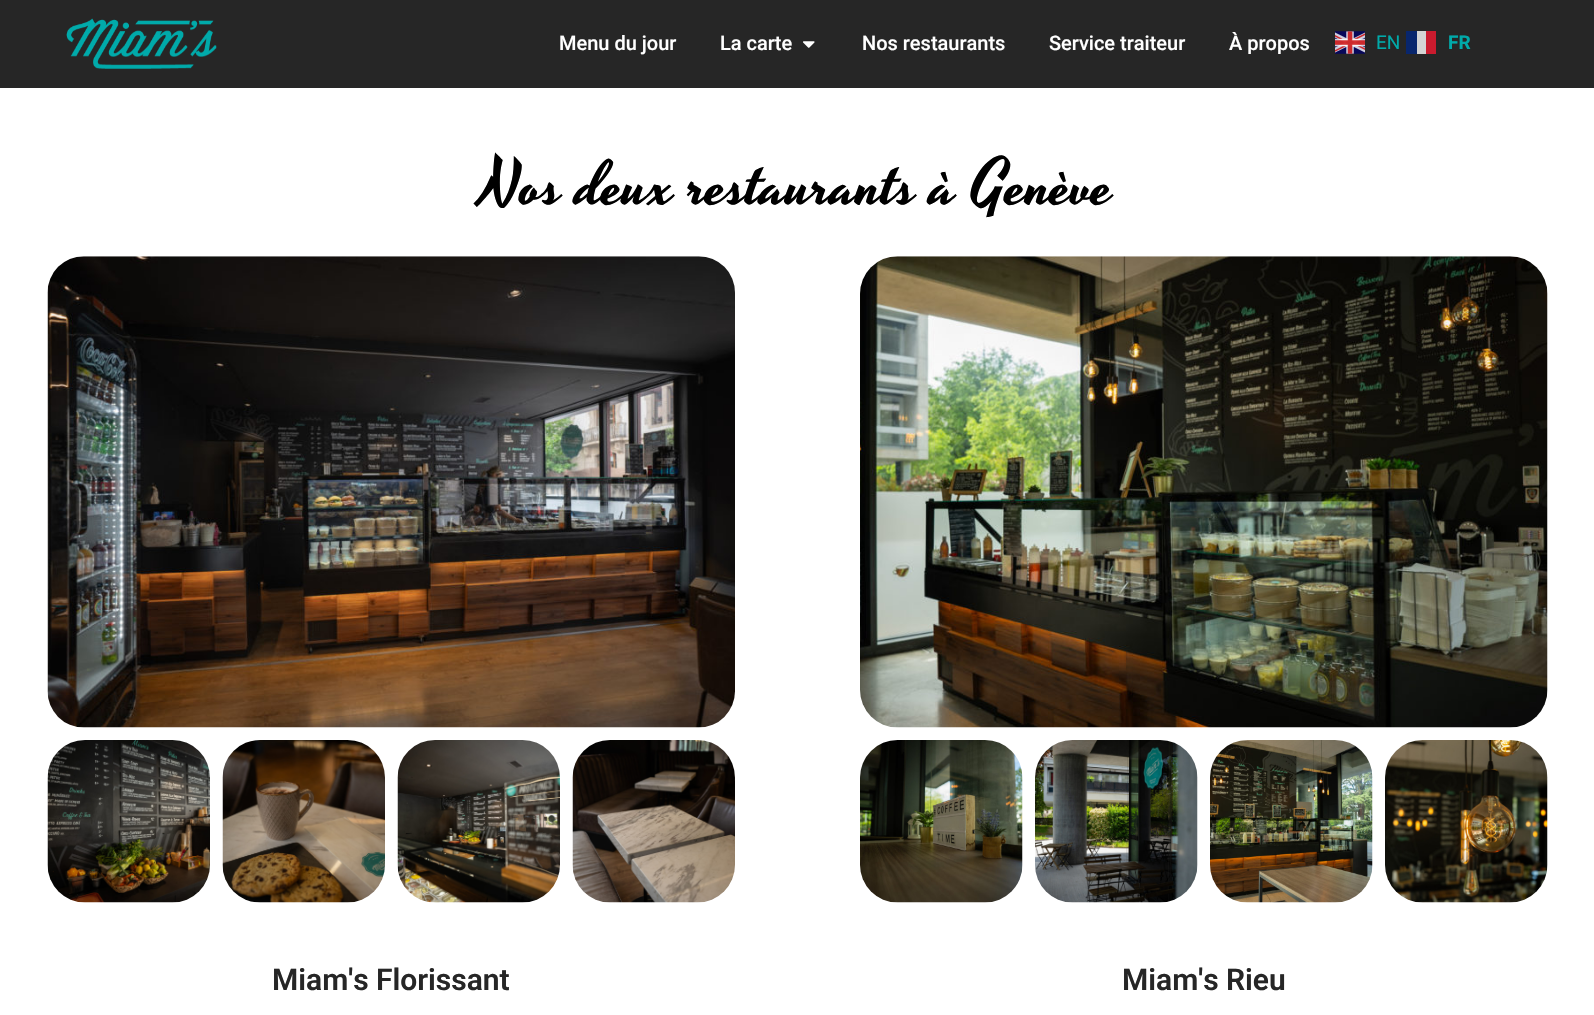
void draw(SkCanvas* canvas) {
    SkPaint paint;
    paint.setAntiAlias(true);
    auto face = [&](const char* family, int weight, float size, bool italic = false) {
        SkFontStyle style(weight, SkFontStyle::kNormal_Width,
            italic ? SkFontStyle::kItalic_Slant : SkFontStyle::kUpright_Slant);
        SkFont result(fontMgr->matchFamilyStyle(family, style), size);
        result.setSubpixel(true);
        return result;
    };
    auto write = [&](const char* s, float x, float y, const SkFont& font, SkColor color) {
        SkPaint ink(SkColor4f::FromColor(color));
        ink.setAntiAlias(true);
        canvas->drawString(s, x, y, font, ink);
    };
    auto block = [&](float x, float y, float w, float h, SkColor color) {
        SkPaint ink(SkColor4f::FromColor(color));
        ink.setAntiAlias(true);
        canvas->drawRect(SkRect::MakeXYWH(x, y, w, h), ink);
    };
    auto paste = [&](const char* path, float x, float y, float w, float h) {
        auto image = SkImages::DeferredFromEncodedData(SkData::MakeFromFileName(path));
        canvas->drawImageRect(image, SkRect::MakeXYWH(x, y, w, h), SkSamplingOptions());
    };
    canvas->clear(SkColorSetRGB(38, 38, 38));
    paste("pic1.png", 66, 18, 151, 51);
    auto kFont1 = face("Roboto", 500, 20);
    write("Menu du jour", 559, 50, kFont1, SK_ColorWHITE);
    write("La carte", 720, 50, kFont1, SK_ColorWHITE);
    paste("pic2.png", 803, 41, 12, 7);
    write("Nos restaurants", 862, 50, kFont1, SK_ColorWHITE);
    write("Service traiteur", 1049, 50, kFont1, SK_ColorWHITE);
    write("À propos", 1229, 50, kFont1, SK_ColorWHITE);
    paste("pic3.png", 1335, 31, 30, 23);
    auto kFont2 = face("Roboto", 400, 19);
    write("EN", 1376, 49, kFont2, SkColorSetRGB(0, 170, 170));
    block(1406, 31, 11, 23, SkColorSetRGB(8, 38, 109));
    block(1417, 31, 9, 23, SkColorSetRGB(212, 212, 212));
    block(1426, 31, 10, 23, SkColorSetRGB(202, 27, 46));
    auto kFont3 = face("Roboto", 700, 19);
    write("FR", 1448, 49, kFont3, SkColorSetRGB(0, 170, 170));
    block(0, 88, 1594, 927, SK_ColorWHITE);
    auto kFont4 = face("Yesteryear", 400, 62.5f);
    write("Nos deux restaurants à Genève", 481, 203, kFont4, SK_ColorBLACK);
    paste("pic4.png", 47, 256, 688, 472);
    paste("pic5.png", 47, 740, 163, 163);
    paste("pic6.png", 222, 740, 163, 163);
    paste("pic7.png", 397, 740, 163, 163);
    paste("pic8.png", 572, 740, 163, 163);
    auto kFont5 = face("Roboto", 600, 30);
    write("Miam's Florissant", 272, 990, kFont5, SkColorSetRGB(38, 38, 38));
    paste("pic9.png", 860, 256, 688, 472);
    paste("pic10.png", 860, 740, 163, 163);
    paste("pic11.png", 1035, 740, 163, 163);
    paste("pic12.png", 1210, 740, 163, 163);
    paste("pic13.png", 1385, 740, 163, 163);
    write("Miam's Rieu", 1122, 990, kFont5, SkColorSetRGB(38, 38, 38));
}
